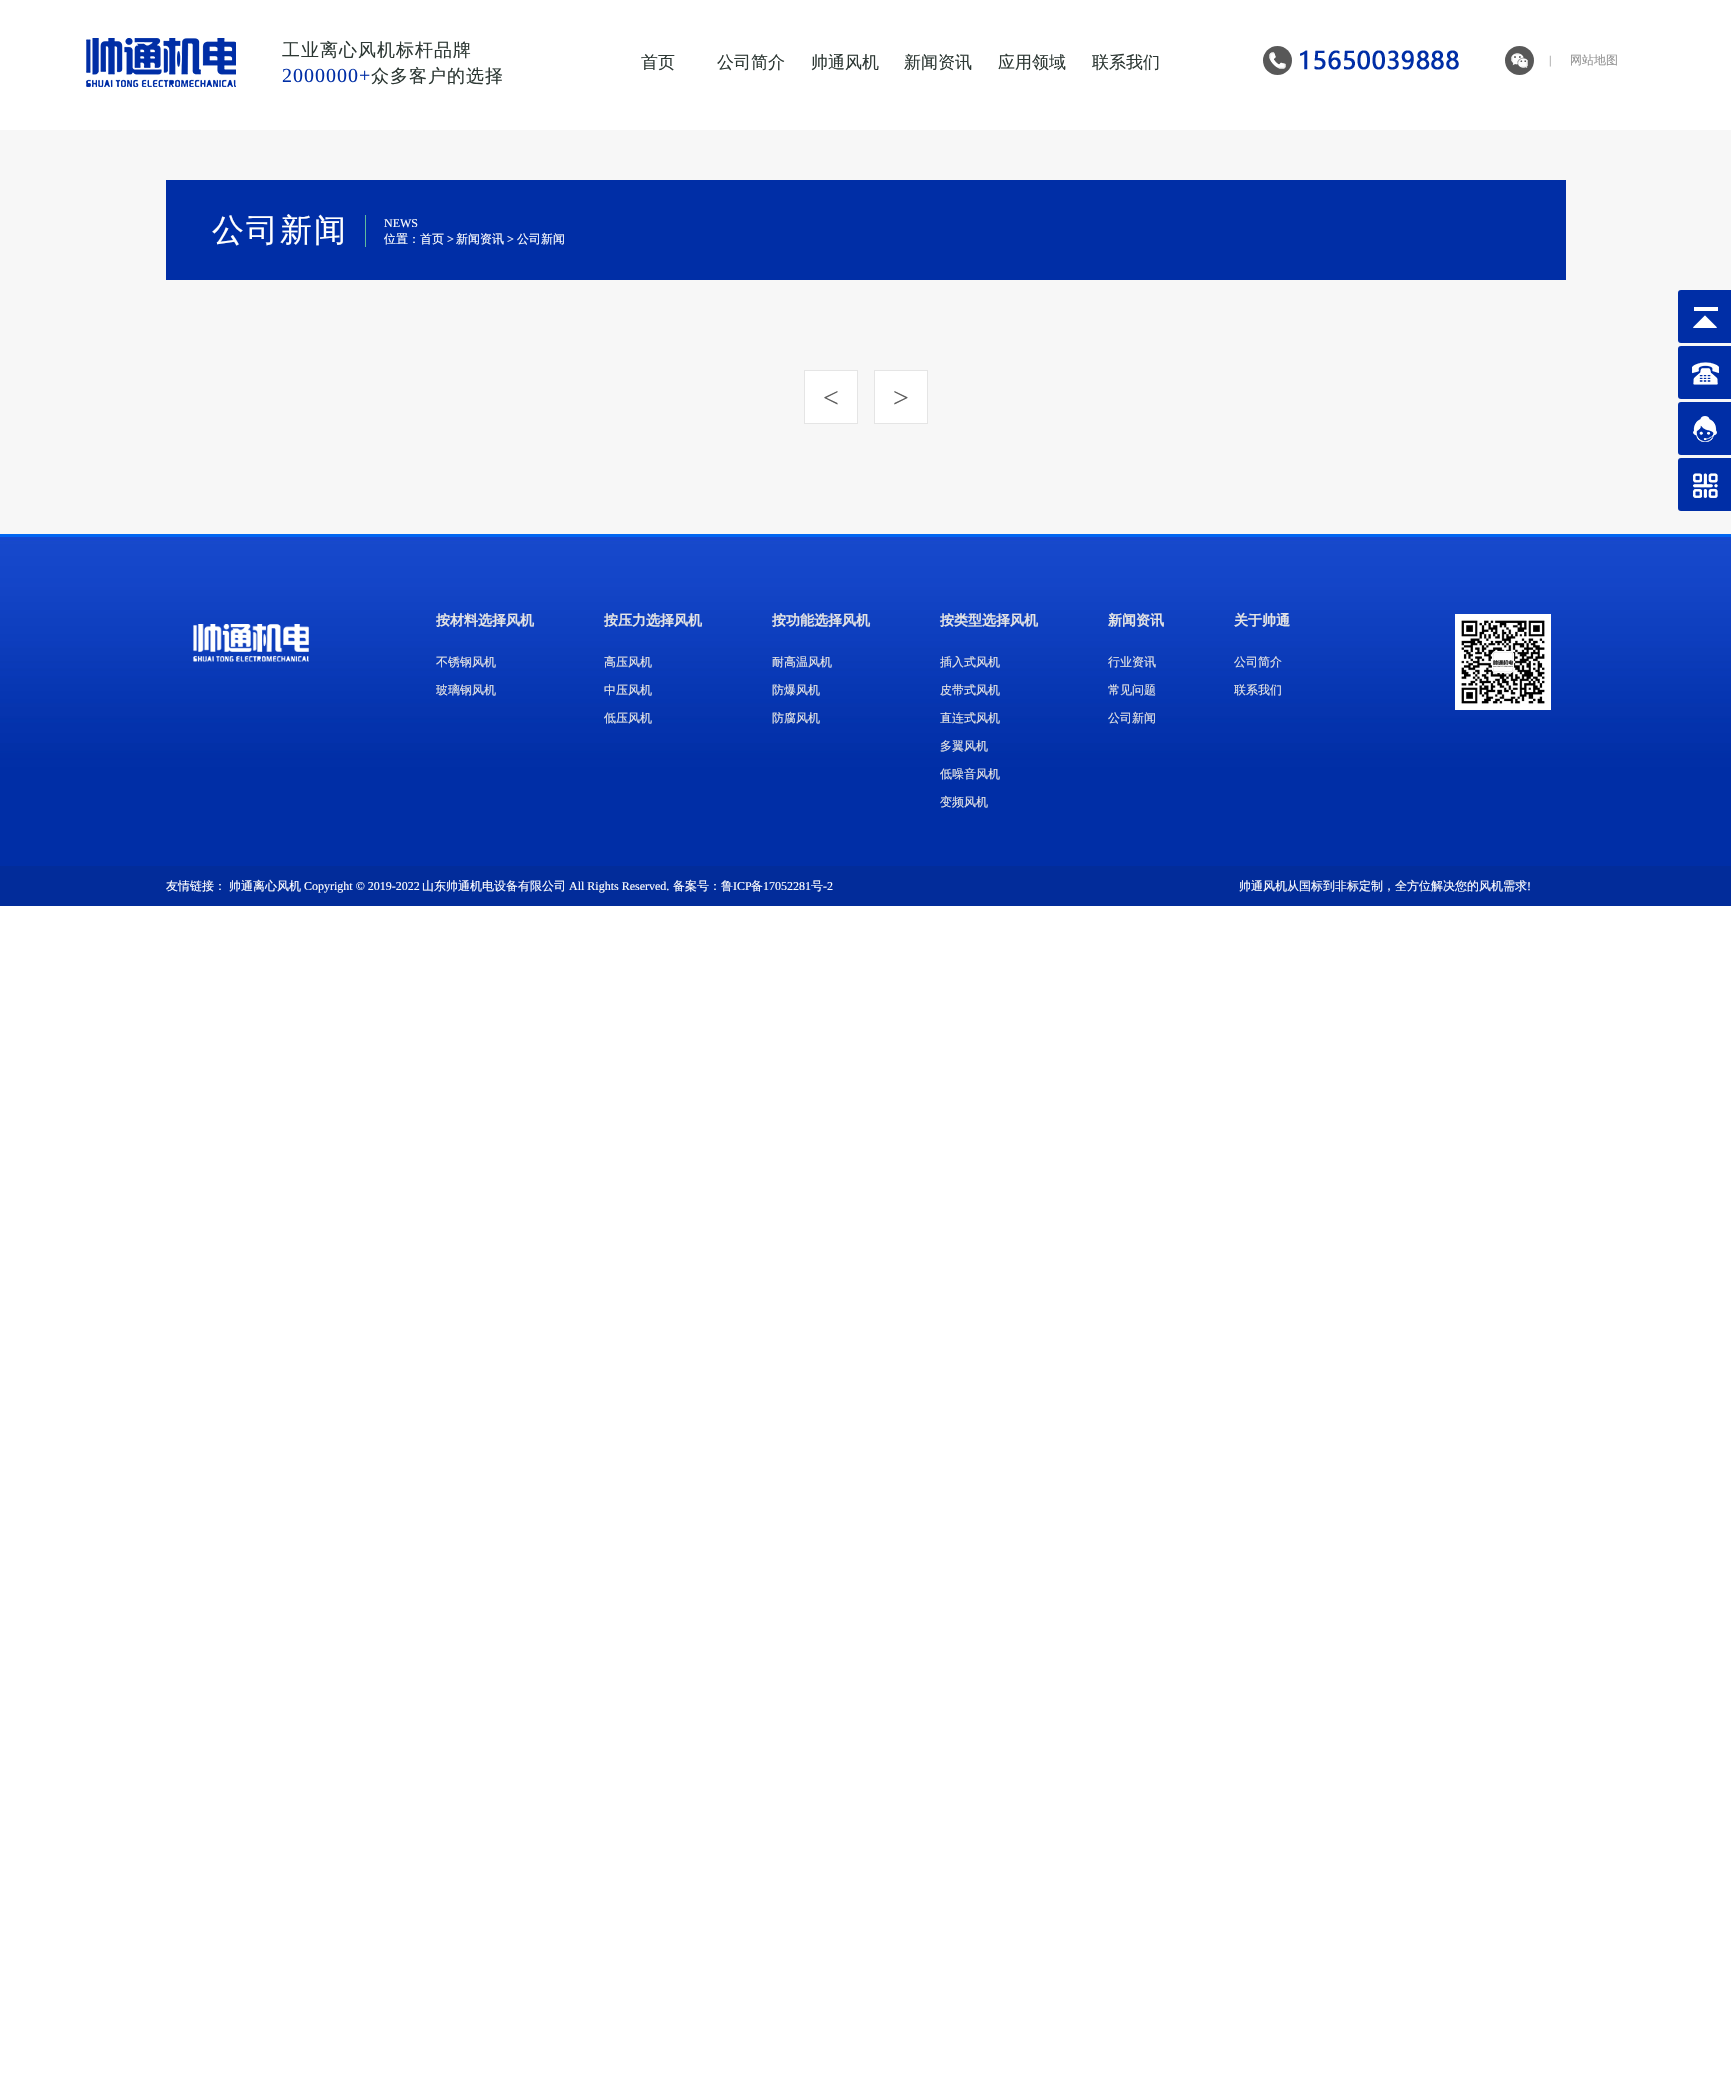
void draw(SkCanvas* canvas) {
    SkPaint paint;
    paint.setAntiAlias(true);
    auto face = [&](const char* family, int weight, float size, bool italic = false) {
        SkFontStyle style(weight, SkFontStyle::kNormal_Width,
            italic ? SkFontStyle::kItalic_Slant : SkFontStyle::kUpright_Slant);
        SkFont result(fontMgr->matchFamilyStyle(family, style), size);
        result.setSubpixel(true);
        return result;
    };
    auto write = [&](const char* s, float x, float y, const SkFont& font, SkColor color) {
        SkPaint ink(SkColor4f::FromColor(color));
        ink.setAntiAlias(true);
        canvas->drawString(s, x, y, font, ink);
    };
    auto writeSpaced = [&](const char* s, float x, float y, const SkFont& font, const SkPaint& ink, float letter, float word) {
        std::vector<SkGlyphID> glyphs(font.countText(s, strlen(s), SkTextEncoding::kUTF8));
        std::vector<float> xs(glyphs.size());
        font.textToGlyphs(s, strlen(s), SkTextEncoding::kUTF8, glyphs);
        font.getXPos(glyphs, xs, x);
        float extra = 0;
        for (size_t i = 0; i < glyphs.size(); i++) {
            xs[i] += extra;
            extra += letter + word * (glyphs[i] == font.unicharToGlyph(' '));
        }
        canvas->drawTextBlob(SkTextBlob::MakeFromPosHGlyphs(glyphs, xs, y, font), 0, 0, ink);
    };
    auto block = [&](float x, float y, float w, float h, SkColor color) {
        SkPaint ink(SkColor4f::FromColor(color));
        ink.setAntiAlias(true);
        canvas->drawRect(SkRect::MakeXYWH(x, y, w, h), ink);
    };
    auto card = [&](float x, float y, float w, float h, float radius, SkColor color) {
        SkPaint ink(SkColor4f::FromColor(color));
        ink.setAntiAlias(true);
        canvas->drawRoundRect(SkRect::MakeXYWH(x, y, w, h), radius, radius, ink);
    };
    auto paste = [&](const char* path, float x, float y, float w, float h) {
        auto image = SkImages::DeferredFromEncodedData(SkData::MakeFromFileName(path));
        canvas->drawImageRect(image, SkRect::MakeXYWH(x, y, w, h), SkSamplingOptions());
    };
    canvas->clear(SK_ColorWHITE);
    paste("pic1.png", 86, 38, 150, 49);
    auto kFont1 = face("WenQuanYi Zen Hei", 500, 18);
    paint.setColor(SkColorSetRGB(45, 56, 52));
    writeSpaced("工业离心风机标杆品牌", 282, 56, kFont1, paint, 1, 0);
    auto kFont2 = face("Liberation Serif", 400, 20);
    paint.setColor(SkColorSetRGB(0, 46, 166));
    writeSpaced("2000000+", 282, 82, kFont2, paint, 1, 0);
    paint.setColor(SkColorSetRGB(45, 56, 52));
    writeSpaced("众多客户的选择", 371, 82, kFont1, paint, 1, 0);
    auto kFont3 = face("WenQuanYi Zen Hei", 500, 17);
    write("首页", 641, 68, kFont3, SkColorSetRGB(45, 56, 52));
    write("公司简介", 717, 68, kFont3, SkColorSetRGB(45, 56, 52));
    write("帅通风机", 811, 68, kFont3, SkColorSetRGB(45, 56, 52));
    write("新闻资讯", 904, 68, kFont3, SkColorSetRGB(45, 56, 52));
    write("应用领域", 998, 68, kFont3, SkColorSetRGB(45, 56, 52));
    write("联系我们", 1092, 68, kFont3, SkColorSetRGB(45, 56, 52));
    paint.setColor(SkColorSetRGB(88, 88, 88));
    canvas->drawCircle(1277.5f, 60.5f, 14.5f, paint);
    paste("pic2.png", 1269, 52, 17, 17);
    paste("pic3.png", 1300, 50, 159, 20);
    canvas->drawCircle(1519.5f, 60.5f, 14.5f, paint);
    paste("pic4.png", 1511, 53, 17, 15);
    auto kFont4 = face("Liberation Serif", 400, 12);
    write("|", 1549, 64, kFont4, SkColorSetRGB(147, 147, 147));
    auto kFont5 = face("WenQuanYi Zen Hei", 500, 12);
    write("网站地图", 1570, 64, kFont5, SkColorSetRGB(147, 147, 147));
    block(0, 130, 1731, 404, SkColorSetRGB(247, 247, 247));
    block(166, 180, 1400, 100, SkColorSetRGB(0, 46, 166));
    auto kFont6 = face("WenQuanYi Zen Hei", 500, 32);
    paint.setColor(SK_ColorWHITE);
    writeSpaced("公司新闻", 212, 241, kFont6, paint, 2, 0);
    block(365, 215, 1, 32, SkColorSetRGB(95, 187, 155));
    write("NEWS", 384, 227, kFont4, SK_ColorWHITE);
    write("位置：首页", 384, 243, kFont5, SK_ColorWHITE);
    write(">", 447, 243, kFont4, SK_ColorWHITE);
    write("新闻资讯", 456, 243, kFont5, SK_ColorWHITE);
    write(">", 507, 243, kFont4, SK_ColorWHITE);
    write("公司新闻", 517, 243, kFont5, SK_ColorWHITE);
    canvas->drawRect(SkRect::MakeXYWH(804.5f, 370.5f, 53, 53), paint);
    paint.setStyle(SkPaint::kStroke_Style);
    paint.setStrokeWidth(1);
    paint.setColor(SkColorSetRGB(229, 229, 229));
    canvas->drawRect(SkRect::MakeXYWH(804.5f, 370.5f, 53, 53), paint);
    auto kFont7 = face("Liberation Serif", 400, 28);
    write("<", 823, 407, kFont7, SkColorSetRGB(92, 92, 92));
    paint.setStyle(SkPaint::kFill_Style);
    paint.setColor(SK_ColorWHITE);
    canvas->drawRect(SkRect::MakeXYWH(874.5f, 370.5f, 53, 53), paint);
    paint.setStyle(SkPaint::kStroke_Style);
    paint.setColor(SkColorSetRGB(229, 229, 229));
    canvas->drawRect(SkRect::MakeXYWH(874.5f, 370.5f, 53, 53), paint);
    write(">", 893, 407, kFont7, SkColorSetRGB(92, 92, 92));
    card(1678, 290, 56, 53, 3, SkColorSetRGB(0, 46, 166));
    paste("pic5.png", 1693, 307, 25, 21);
    card(1678, 346, 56, 53, 3, SkColorSetRGB(0, 46, 166));
    paste("pic6.png", 1692, 362, 27, 23);
    card(1678, 402, 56, 53, 3, SkColorSetRGB(0, 46, 166));
    paste("pic7.png", 1693, 416, 24, 26);
    card(1678, 458, 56, 53, 3, SkColorSetRGB(0, 46, 166));
    paste("pic8.png", 1693, 473, 25, 25);
    paste("pic9.png", 0, 534, 1731, 332);
    paste("pic10.png", 193, 624, 116, 38);
    auto kFont8 = face("WenQuanYi Zen Hei", 700, 14);
    write("按材料选择风机", 436, 625, kFont8, SkColorSetRGB(228, 228, 228));
    write("不锈钢风机", 436, 666, kFont5, SkColorSetRGB(228, 228, 228));
    write("玻璃钢风机", 436, 694, kFont5, SkColorSetRGB(228, 228, 228));
    write("按压力选择风机", 604, 625, kFont8, SkColorSetRGB(228, 228, 228));
    write("高压风机", 604, 666, kFont5, SkColorSetRGB(228, 228, 228));
    write("中压风机", 604, 694, kFont5, SkColorSetRGB(228, 228, 228));
    write("低压风机", 604, 722, kFont5, SkColorSetRGB(228, 228, 228));
    write("按功能选择风机", 772, 625, kFont8, SkColorSetRGB(228, 228, 228));
    write("耐高温风机", 772, 666, kFont5, SkColorSetRGB(228, 228, 228));
    write("防爆风机", 772, 694, kFont5, SkColorSetRGB(228, 228, 228));
    write("防腐风机", 772, 722, kFont5, SkColorSetRGB(228, 228, 228));
    write("按类型选择风机", 940, 625, kFont8, SkColorSetRGB(228, 228, 228));
    write("插入式风机", 940, 666, kFont5, SkColorSetRGB(228, 228, 228));
    write("皮带式风机", 940, 694, kFont5, SkColorSetRGB(228, 228, 228));
    write("直连式风机", 940, 722, kFont5, SkColorSetRGB(228, 228, 228));
    write("多翼风机", 940, 750, kFont5, SkColorSetRGB(228, 228, 228));
    write("低噪音风机", 940, 778, kFont5, SkColorSetRGB(228, 228, 228));
    write("变频风机", 940, 806, kFont5, SkColorSetRGB(228, 228, 228));
    write("新闻资讯", 1108, 625, kFont8, SkColorSetRGB(228, 228, 228));
    write("行业资讯", 1108, 666, kFont5, SkColorSetRGB(228, 228, 228));
    write("常见问题", 1108, 694, kFont5, SkColorSetRGB(228, 228, 228));
    write("公司新闻", 1108, 722, kFont5, SkColorSetRGB(228, 228, 228));
    write("关于帅通", 1234, 625, kFont8, SkColorSetRGB(228, 228, 228));
    write("公司简介", 1234, 666, kFont5, SkColorSetRGB(228, 228, 228));
    write("联系我们", 1234, 694, kFont5, SkColorSetRGB(228, 228, 228));
    paste("pic11.png", 1455, 614, 96, 96);
    block(0, 866, 1731, 40, SkColorSetRGB(2, 44, 154));
    write("友情链接：", 166, 890, kFont5, SK_ColorWHITE);
    write("帅通离心风机", 229, 890, kFont5, SK_ColorWHITE);
    write("Copyright © 2019-2022", 304, 890, kFont4, SK_ColorWHITE);
    write("山东帅通机电设备有限公司", 422, 890, kFont5, SK_ColorWHITE);
    write("All Rights Reserved.", 569, 890, kFont4, SK_ColorWHITE);
    write("备案号：鲁", 673, 890, kFont5, SK_ColorWHITE);
    write("ICP", 733, 890, kFont4, SK_ColorWHITE);
    write("备", 751, 890, kFont5, SK_ColorWHITE);
    write("17052281", 763, 890, kFont4, SK_ColorWHITE);
    write("号", 811, 890, kFont5, SK_ColorWHITE);
    write("-2", 823, 890, kFont4, SK_ColorWHITE);
    write("帅通风机从国标到非标定制，全方位解决您的风机需求", 1239, 890, kFont5, SK_ColorWHITE);
    write("!", 1527, 890, kFont4, SK_ColorWHITE);
}
